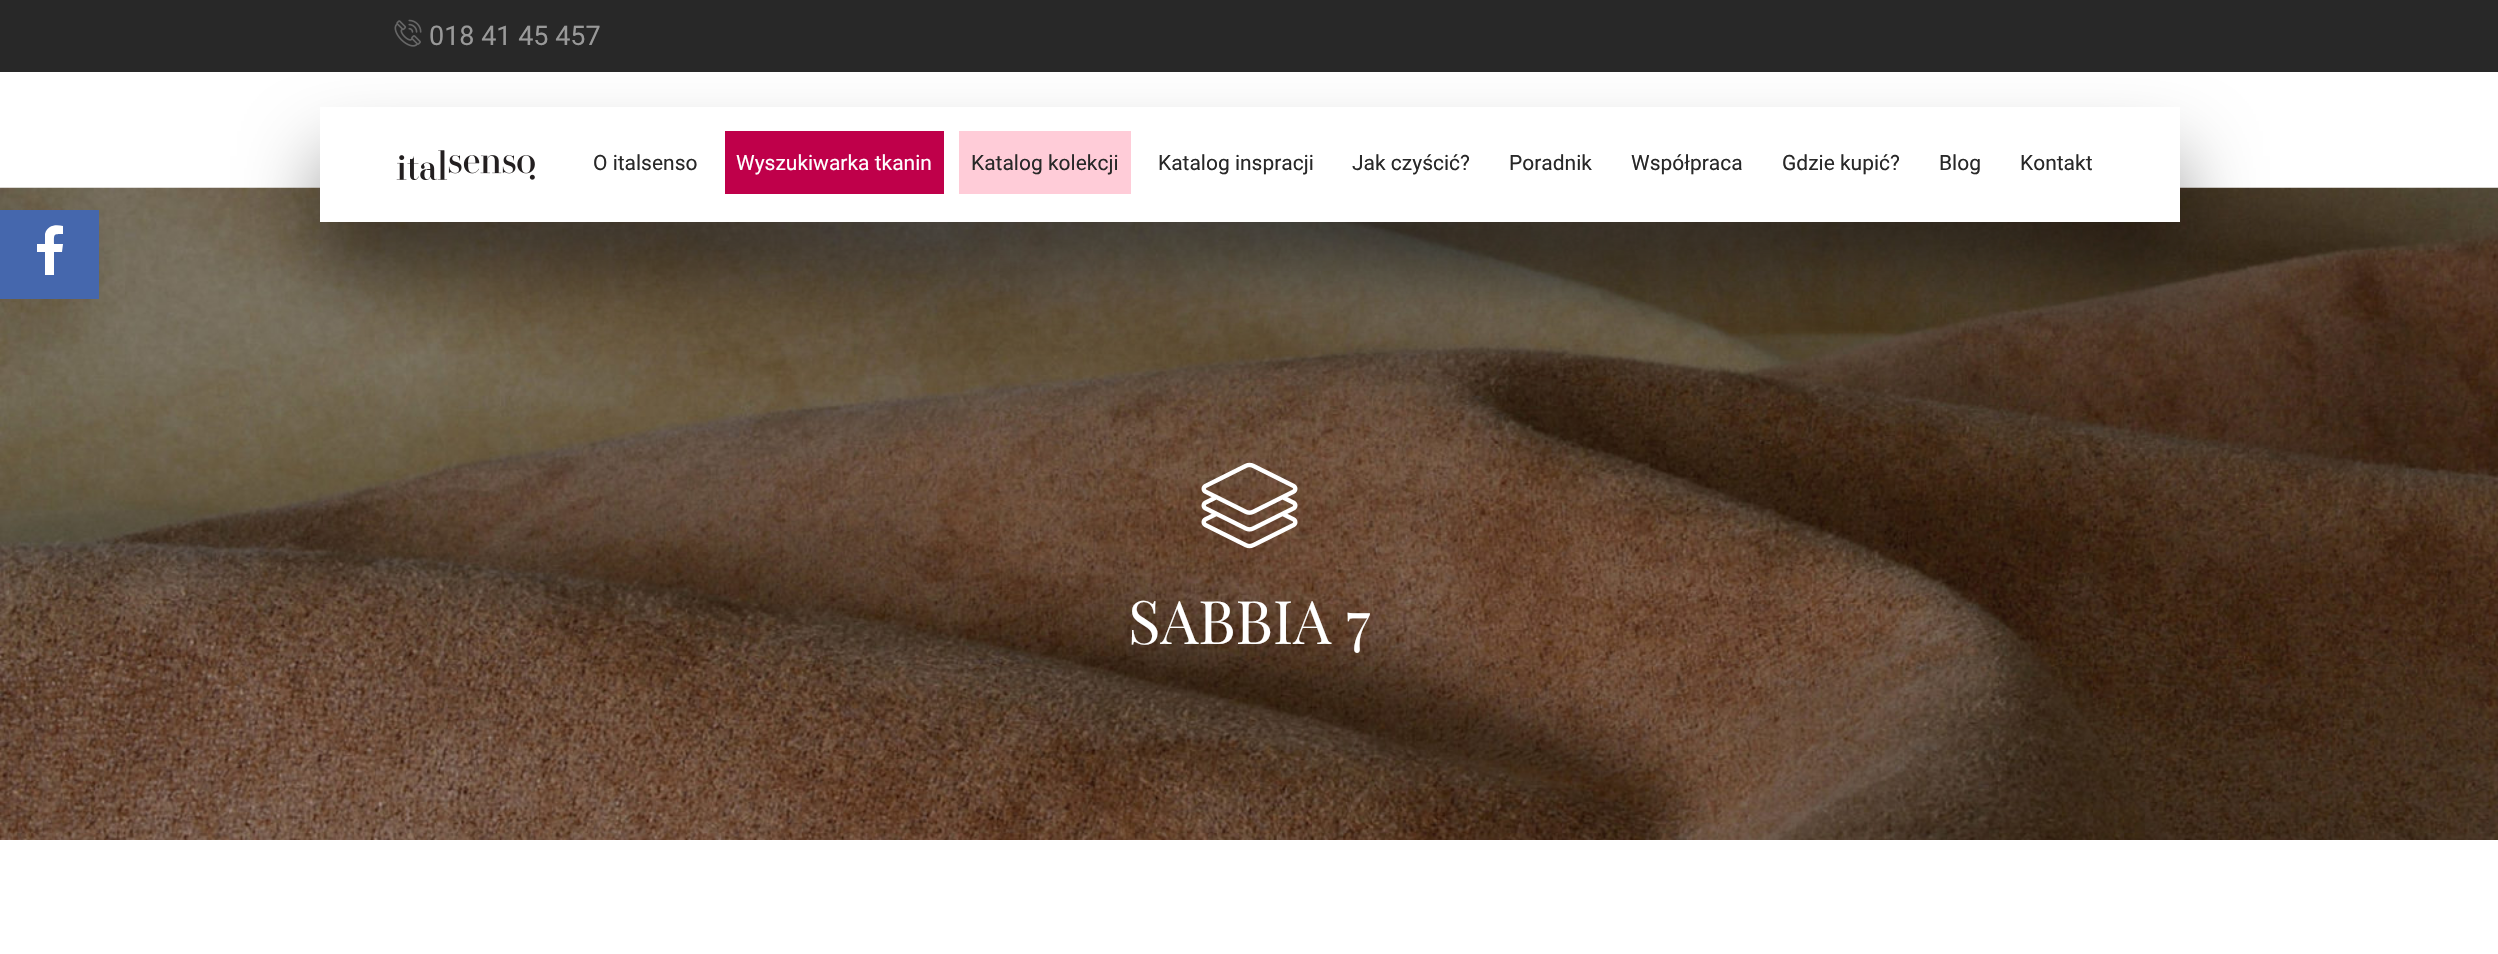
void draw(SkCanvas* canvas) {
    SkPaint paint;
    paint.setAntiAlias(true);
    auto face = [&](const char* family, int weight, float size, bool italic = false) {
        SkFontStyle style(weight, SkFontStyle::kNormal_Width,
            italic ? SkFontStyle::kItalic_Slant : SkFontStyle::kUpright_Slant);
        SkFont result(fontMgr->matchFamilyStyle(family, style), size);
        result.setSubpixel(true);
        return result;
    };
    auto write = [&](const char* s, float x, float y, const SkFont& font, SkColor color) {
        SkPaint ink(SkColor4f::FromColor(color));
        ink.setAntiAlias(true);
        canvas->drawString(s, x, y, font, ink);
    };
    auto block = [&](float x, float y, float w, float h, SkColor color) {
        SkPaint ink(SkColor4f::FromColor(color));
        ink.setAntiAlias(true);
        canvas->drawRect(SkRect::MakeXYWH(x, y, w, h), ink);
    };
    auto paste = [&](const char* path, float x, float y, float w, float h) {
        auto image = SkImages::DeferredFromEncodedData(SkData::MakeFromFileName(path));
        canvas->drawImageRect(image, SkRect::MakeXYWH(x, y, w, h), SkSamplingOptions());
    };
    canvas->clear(SK_ColorWHITE);
    paste("pic3.png", 0, 187, 2498, 653);
    block(0, 210, 99, 89, SkColorSetRGB(69, 103, 173));
    paint.setColor(SK_ColorWHITE);
    canvas->drawPath(SkPathBuilder().moveTo(63, 226).lineTo(63, 234).cubicTo(53, 234, 54, 234, 54, 244).lineTo(63, 244).lineTo(62, 252).lineTo(54, 252).lineTo(54, 275).lineTo(45, 275).lineTo(45, 252).lineTo(37, 252).lineTo(37, 244).lineTo(45, 244).lineTo(45, 234).cubicTo(47, 225, 56, 224, 63, 226).close().detach(), paint);
    block(0, 0, 2498, 72, SkColorSetRGB(40, 40, 40));
    paste("pic1.png", 394, 19, 28, 28);
    auto kFont1 = face("Roboto", 400, 27);
    write("018 41 45 457", 429, 45, kFont1, SkColorSetRGB(153, 153, 153));
    paint.setColor(SkColorSetARGB(105, 0, 0, 0));
    paint.setMaskFilter(SkMaskFilter::MakeBlur(kNormal_SkBlurStyle, 38));
    canvas->drawRect(SkRect::MakeXYWH(320, 156, 1860, 116), paint);
    paint.setMaskFilter(nullptr);
    block(320, 107, 1860, 115, SK_ColorWHITE);
    paste("pic2.png", 396, 150, 139, 30);
    auto kFont2 = face("Roboto", 400, 21);
    write("O italsenso", 593, 170, kFont2, SkColorSetRGB(40, 40, 40));
    block(725, 131, 219, 63, SkColorSetRGB(191, 0, 74));
    write("Wyszukiwarka tkanin", 736, 170, kFont2, SK_ColorWHITE);
    block(959, 131, 172, 63, SkColorSetRGB(255, 204, 216));
    write("Katalog kolekcji", 971, 170, kFont2, SkColorSetRGB(40, 40, 40));
    write("Katalog inspracji", 1158, 170, kFont2, SkColorSetRGB(40, 40, 40));
    write("Jak czyścić?", 1352, 170, kFont2, SkColorSetRGB(40, 40, 40));
    write("Poradnik", 1509, 170, kFont2, SkColorSetRGB(40, 40, 40));
    write("Współpraca", 1631, 170, kFont2, SkColorSetRGB(40, 40, 40));
    write("Gdzie kupić?", 1782, 170, kFont2, SkColorSetRGB(40, 40, 40));
    write("Blog", 1939, 170, kFont2, SkColorSetRGB(40, 40, 40));
    write("Kontakt", 2020, 170, kFont2, SkColorSetRGB(40, 40, 40));
    paste("pic4.png", 1201, 462, 97, 87);
    auto kFont3 = face("Playfair Display", 400, 60);
    write("SABBIA 7", 1128, 644, kFont3, SK_ColorWHITE);
}
